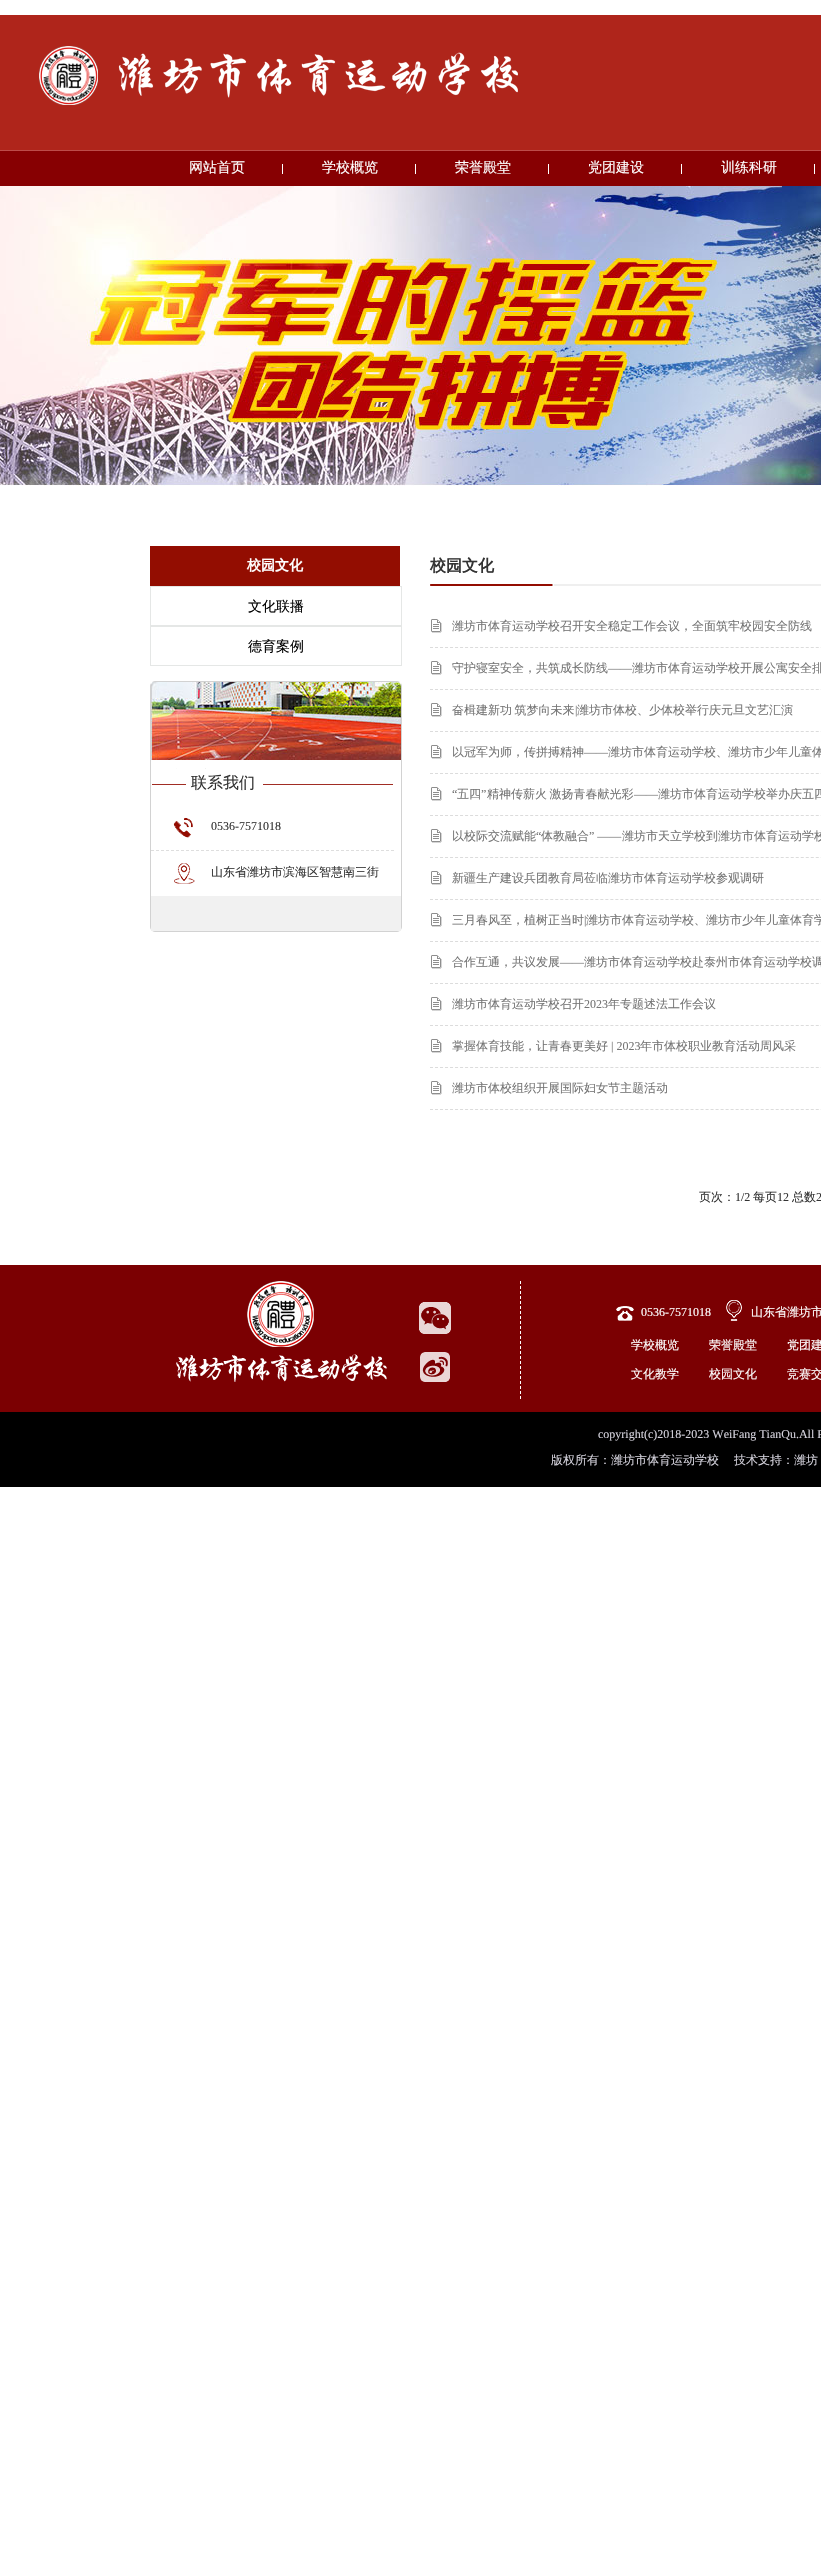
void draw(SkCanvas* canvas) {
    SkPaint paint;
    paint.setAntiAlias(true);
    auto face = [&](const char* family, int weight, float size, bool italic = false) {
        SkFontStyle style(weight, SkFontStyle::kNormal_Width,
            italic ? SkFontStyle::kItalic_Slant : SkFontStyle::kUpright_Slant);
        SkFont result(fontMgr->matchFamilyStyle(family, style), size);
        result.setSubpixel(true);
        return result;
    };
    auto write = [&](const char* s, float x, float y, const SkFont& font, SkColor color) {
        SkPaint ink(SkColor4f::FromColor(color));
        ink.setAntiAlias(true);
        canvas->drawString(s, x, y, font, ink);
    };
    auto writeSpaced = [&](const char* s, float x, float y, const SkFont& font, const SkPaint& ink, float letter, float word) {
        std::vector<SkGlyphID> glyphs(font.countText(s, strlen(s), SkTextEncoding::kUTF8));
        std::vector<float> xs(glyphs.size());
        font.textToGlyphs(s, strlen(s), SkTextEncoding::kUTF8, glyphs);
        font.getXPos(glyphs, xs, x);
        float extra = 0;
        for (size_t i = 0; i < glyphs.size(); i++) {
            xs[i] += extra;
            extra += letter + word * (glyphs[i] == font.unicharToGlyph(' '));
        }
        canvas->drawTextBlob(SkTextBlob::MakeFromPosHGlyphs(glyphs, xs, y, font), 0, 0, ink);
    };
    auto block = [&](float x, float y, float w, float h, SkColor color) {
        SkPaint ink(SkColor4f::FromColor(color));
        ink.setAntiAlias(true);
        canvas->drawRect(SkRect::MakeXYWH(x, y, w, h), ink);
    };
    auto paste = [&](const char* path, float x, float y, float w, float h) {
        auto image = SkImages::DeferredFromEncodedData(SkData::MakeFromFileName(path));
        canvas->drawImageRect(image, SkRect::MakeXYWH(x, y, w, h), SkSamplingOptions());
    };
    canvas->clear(SK_ColorWHITE);
    block(0, 15, 821, 135, SkColorSetRGB(175, 37, 27));
    paste("pic1.png", 39, 46, 479, 59);
    block(0, 151, 821, 35, SkColorSetRGB(135, 0, 2));
    block(0, 150, 821, 1, SkColorSetRGB(189, 76, 74));
    auto kFont1 = face("WenQuanYi Zen Hei", 500, 14);
    write("网站首页", 189, 172, kFont1, SK_ColorWHITE);
    block(282, 164, 1, 10, SK_ColorWHITE);
    write("学校概览", 322, 172, kFont1, SK_ColorWHITE);
    block(415, 164, 1, 10, SK_ColorWHITE);
    write("荣誉殿堂", 455, 172, kFont1, SK_ColorWHITE);
    block(548, 164, 1, 10, SK_ColorWHITE);
    write("党团建设", 588, 172, kFont1, SK_ColorWHITE);
    block(681, 164, 1, 10, SK_ColorWHITE);
    write("训练科研", 721, 172, kFont1, SK_ColorWHITE);
    block(814, 164, 1, 10, SK_ColorWHITE);
    paste("pic2.png", 0, 186, 821, 300);
    block(150, 546, 250, 40, SkColorSetRGB(147, 13, 1));
    auto kFont2 = face("WenQuanYi Zen Hei", 700, 14);
    write("校园文化", 247, 570, kFont2, SK_ColorWHITE);
    paint.setStyle(SkPaint::kStroke_Style);
    paint.setStrokeWidth(1);
    paint.setColor(SkColorSetRGB(229, 231, 230));
    canvas->drawRect(SkRect::MakeXYWH(150.5f, 586.5f, 251, 39), paint);
    write("文化联播", 248, 611, kFont1, SK_ColorBLACK);
    canvas->drawRect(SkRect::MakeXYWH(150.5f, 626.5f, 251, 39), paint);
    write("德育案例", 248, 651, kFont1, SK_ColorBLACK);
    paint.setColor(SkColorSetRGB(210, 210, 210));
    canvas->drawRoundRect(SkRect::MakeXYWH(150.5f, 681.5f, 251, 250), 4.5f, 4.5f, paint);
    paste("pic3.png", 151, 682, 250, 78);
    paste("pic4.png", 152, 768, 241, 17);
    auto kFont3 = face("WenQuanYi Zen Hei", 500, 16);
    write("联系我们", 191, 788, kFont3, SkColorSetRGB(51, 51, 51));
    paint.setColor(SkColorSetRGB(222, 222, 222));
    paint.setPathEffect(SkDashPathEffect::Make({{3, 2}}, 0));
    canvas->drawPath(SkPathBuilder().moveTo(151, 850.5f).lineTo(394, 850.5f).detach(), paint);
    paint.setPathEffect(nullptr);
    paste("pic5.png", 173, 817, 20, 21);
    auto kFont4 = face("Liberation Serif", 400, 12);
    write("0536-7571018", 211, 830, kFont4, SkColorSetRGB(51, 51, 51));
    paste("pic6.png", 174, 863, 21, 21);
    auto kFont5 = face("WenQuanYi Zen Hei", 500, 12);
    write("山东省潍坊市滨海区智慧南三街", 211, 876, kFont5, SkColorSetRGB(51, 51, 51));
    block(151, 896, 250, 35, SkColorSetRGB(241, 241, 241));
    paste("pic7.png", 430, 584, 391, 2);
    auto kFont6 = face("WenQuanYi Zen Hei", 700, 16);
    write("校园文化", 430, 571, kFont6, SkColorSetRGB(51, 51, 51));
    paint.setColor(SkColorSetRGB(220, 220, 220));
    paint.setPathEffect(SkDashPathEffect::Make({{3, 2.01f}}, 0));
    canvas->drawPath(SkPathBuilder().moveTo(430, 647.5f).lineTo(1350, 647.5f).detach(), paint);
    paint.setPathEffect(nullptr);
    paste("pic8.png", 431, 619, 11, 14);
    write("潍坊市体育运动学校召开安全稳定工作会议，全面筑牢校园安全防线", 452, 630, kFont5, SkColorSetRGB(116, 116, 116));
    paint.setPathEffect(SkDashPathEffect::Make({{3, 2.01f}}, 0));
    canvas->drawPath(SkPathBuilder().moveTo(430, 689.5f).lineTo(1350, 689.5f).detach(), paint);
    paint.setPathEffect(nullptr);
    paste("pic8.png", 431, 661, 11, 14);
    write("守护寝室安全，共筑成长防线", 452, 672, kFont5, SkColorSetRGB(116, 116, 116));
    write("——", 608, 672, kFont4, SkColorSetRGB(116, 116, 116));
    write("潍坊市体育运动学校开展公寓安全排", 632, 672, kFont5, SkColorSetRGB(116, 116, 116));
    paint.setPathEffect(SkDashPathEffect::Make({{3, 2.01f}}, 0));
    canvas->drawPath(SkPathBuilder().moveTo(430, 731.5f).lineTo(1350, 731.5f).detach(), paint);
    paint.setPathEffect(nullptr);
    paste("pic8.png", 431, 703, 11, 14);
    paint.setStyle(SkPaint::kFill_Style);
    paint.setColor(SkColorSetRGB(116, 116, 116));
    writeSpaced("奋楫建新功 筑梦向未来", 452, 714, kFont5, paint, 0, -1);
    write("|", 575, 714, kFont4, SkColorSetRGB(116, 116, 116));
    write("潍坊市体校、少体校举行庆元旦文艺汇演", 577, 714, kFont5, SkColorSetRGB(116, 116, 116));
    paint.setStyle(SkPaint::kStroke_Style);
    paint.setColor(SkColorSetRGB(220, 220, 220));
    paint.setPathEffect(SkDashPathEffect::Make({{3, 2.01f}}, 0));
    canvas->drawPath(SkPathBuilder().moveTo(430, 773.5f).lineTo(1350, 773.5f).detach(), paint);
    paint.setPathEffect(nullptr);
    paste("pic8.png", 431, 745, 11, 14);
    write("以冠军为师，传拼搏精神", 452, 756, kFont5, SkColorSetRGB(116, 116, 116));
    write("——", 584, 756, kFont4, SkColorSetRGB(116, 116, 116));
    write("潍坊市体育运动学校、潍坊市少年儿童体", 608, 756, kFont5, SkColorSetRGB(116, 116, 116));
    paint.setPathEffect(SkDashPathEffect::Make({{3, 2.01f}}, 0));
    canvas->drawPath(SkPathBuilder().moveTo(430, 815.5f).lineTo(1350, 815.5f).detach(), paint);
    paint.setPathEffect(nullptr);
    paste("pic8.png", 431, 787, 11, 14);
    write("“", 452, 798, kFont4, SkColorSetRGB(116, 116, 116));
    write("五四", 457, 798, kFont5, SkColorSetRGB(116, 116, 116));
    write("”", 481, 798, kFont4, SkColorSetRGB(116, 116, 116));
    paint.setStyle(SkPaint::kFill_Style);
    paint.setColor(SkColorSetRGB(116, 116, 116));
    writeSpaced("精神传薪火 激扬青春献光彩", 487, 798, kFont5, paint, 0, -1);
    write("——", 634, 798, kFont4, SkColorSetRGB(116, 116, 116));
    write("潍坊市体育运动学校举办庆五四", 658, 798, kFont5, SkColorSetRGB(116, 116, 116));
    paint.setStyle(SkPaint::kStroke_Style);
    paint.setColor(SkColorSetRGB(220, 220, 220));
    paint.setPathEffect(SkDashPathEffect::Make({{3, 2.01f}}, 0));
    canvas->drawPath(SkPathBuilder().moveTo(430, 857.5f).lineTo(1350, 857.5f).detach(), paint);
    paint.setPathEffect(nullptr);
    paste("pic8.png", 431, 829, 11, 14);
    write("以校际交流赋能", 452, 840, kFont5, SkColorSetRGB(116, 116, 116));
    write("“", 536, 840, kFont4, SkColorSetRGB(116, 116, 116));
    write("体教融合", 541, 840, kFont5, SkColorSetRGB(116, 116, 116));
    write("” ——", 589, 840, kFont4, SkColorSetRGB(116, 116, 116));
    write("潍坊市天立学校到潍坊市体育运动学校", 622, 840, kFont5, SkColorSetRGB(116, 116, 116));
    paint.setPathEffect(SkDashPathEffect::Make({{3, 2.01f}}, 0));
    canvas->drawPath(SkPathBuilder().moveTo(430, 899.5f).lineTo(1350, 899.5f).detach(), paint);
    paint.setPathEffect(nullptr);
    paste("pic8.png", 431, 871, 11, 14);
    write("新疆生产建设兵团教育局莅临潍坊市体育运动学校参观调研", 452, 882, kFont5, SkColorSetRGB(116, 116, 116));
    paint.setPathEffect(SkDashPathEffect::Make({{3, 2.01f}}, 0));
    canvas->drawPath(SkPathBuilder().moveTo(430, 941.5f).lineTo(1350, 941.5f).detach(), paint);
    paint.setPathEffect(nullptr);
    paste("pic8.png", 431, 913, 11, 14);
    write("三月春风至，植树正当时", 452, 924, kFont5, SkColorSetRGB(116, 116, 116));
    write("|", 584, 924, kFont4, SkColorSetRGB(116, 116, 116));
    write("潍坊市体育运动学校、潍坊市少年儿童体育学", 586, 924, kFont5, SkColorSetRGB(116, 116, 116));
    paint.setPathEffect(SkDashPathEffect::Make({{3, 2.01f}}, 0));
    canvas->drawPath(SkPathBuilder().moveTo(430, 983.5f).lineTo(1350, 983.5f).detach(), paint);
    paint.setPathEffect(nullptr);
    paste("pic8.png", 431, 955, 11, 14);
    write("合作互通，共议发展", 452, 966, kFont5, SkColorSetRGB(116, 116, 116));
    write("——", 560, 966, kFont4, SkColorSetRGB(116, 116, 116));
    write("潍坊市体育运动学校赴泰州市体育运动学校调", 584, 966, kFont5, SkColorSetRGB(116, 116, 116));
    paint.setPathEffect(SkDashPathEffect::Make({{3, 2.01f}}, 0));
    canvas->drawPath(SkPathBuilder().moveTo(430, 1025.5f).lineTo(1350, 1025.5f).detach(), paint);
    paint.setPathEffect(nullptr);
    paste("pic8.png", 431, 997, 11, 14);
    write("潍坊市体育运动学校召开", 452, 1008, kFont5, SkColorSetRGB(116, 116, 116));
    write("2023", 584, 1008, kFont4, SkColorSetRGB(116, 116, 116));
    write("年专题述法工作会议", 608, 1008, kFont5, SkColorSetRGB(116, 116, 116));
    paint.setPathEffect(SkDashPathEffect::Make({{3, 2.01f}}, 0));
    canvas->drawPath(SkPathBuilder().moveTo(430, 1067.5f).lineTo(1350, 1067.5f).detach(), paint);
    paint.setPathEffect(nullptr);
    paste("pic8.png", 431, 1039, 11, 14);
    write("掌握体育技能，让青春更美好", 452, 1050, kFont5, SkColorSetRGB(116, 116, 116));
    write("| 2023", 611, 1050, kFont4, SkColorSetRGB(116, 116, 116));
    write("年市体校职业教育活动周风采", 640, 1050, kFont5, SkColorSetRGB(116, 116, 116));
    paint.setPathEffect(SkDashPathEffect::Make({{3, 2.01f}}, 0));
    canvas->drawPath(SkPathBuilder().moveTo(430, 1109.5f).lineTo(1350, 1109.5f).detach(), paint);
    paint.setPathEffect(nullptr);
    paste("pic8.png", 431, 1081, 11, 14);
    write("潍坊市体校组织开展国际妇女节主题活动", 452, 1092, kFont5, SkColorSetRGB(116, 116, 116));
    write("页次：", 699, 1201, kFont5, SkColorSetRGB(51, 51, 51));
    write("1/2", 735, 1201, kFont4, SkColorSetRGB(51, 51, 51));
    write("每页", 753, 1201, kFont5, SkColorSetRGB(51, 51, 51));
    write("12", 777, 1201, kFont4, SkColorSetRGB(51, 51, 51));
    write("总数", 792, 1201, kFont5, SkColorSetRGB(51, 51, 51));
    write("2", 816, 1201, kFont4, SkColorSetRGB(51, 51, 51));
    block(0, 1265, 821, 147, SkColorSetRGB(123, 0, 2));
    paint.setColor(SK_ColorWHITE);
    paint.setPathEffect(SkDashPathEffect::Make({{3, 2}}, 0));
    canvas->drawPath(SkPathBuilder().moveTo(520.5f, 1281).lineTo(520.5f, 1399).detach(), paint);
    paint.setPathEffect(nullptr);
    paste("pic9.png", 176, 1281, 211, 101);
    paste("pic10.png", 419, 1302, 32, 32);
    paste("pic11.png", 420, 1352, 30, 30);
    paste("pic12.png", 616, 1306, 18, 15);
    write("0536-7571018", 641, 1316, kFont4, SK_ColorWHITE);
    paste("pic13.png", 726, 1300, 16, 21);
    write("山东省潍坊市", 751, 1316, kFont5, SK_ColorWHITE);
    write("学校概览", 631, 1349, kFont5, SK_ColorWHITE);
    write("荣誉殿堂", 709, 1349, kFont5, SK_ColorWHITE);
    write("党团建", 787, 1349, kFont5, SK_ColorWHITE);
    write("文化教学", 631, 1378, kFont5, SK_ColorWHITE);
    write("校园文化", 709, 1378, kFont5, SK_ColorWHITE);
    write("竞赛交", 787, 1378, kFont5, SK_ColorWHITE);
    block(0, 1412, 821, 75, SK_ColorBLACK);
    write("copyright(c)2018-2023 WeiFang TianQu.All R", 598, 1438, kFont4, SkColorSetRGB(212, 210, 220));
    write("版权所有：潍坊市体育运动学校", 551, 1464, kFont5, SkColorSetRGB(212, 210, 220));
    write("技术支持：潍坊", 734, 1464, kFont5, SkColorSetRGB(212, 210, 220));
}
